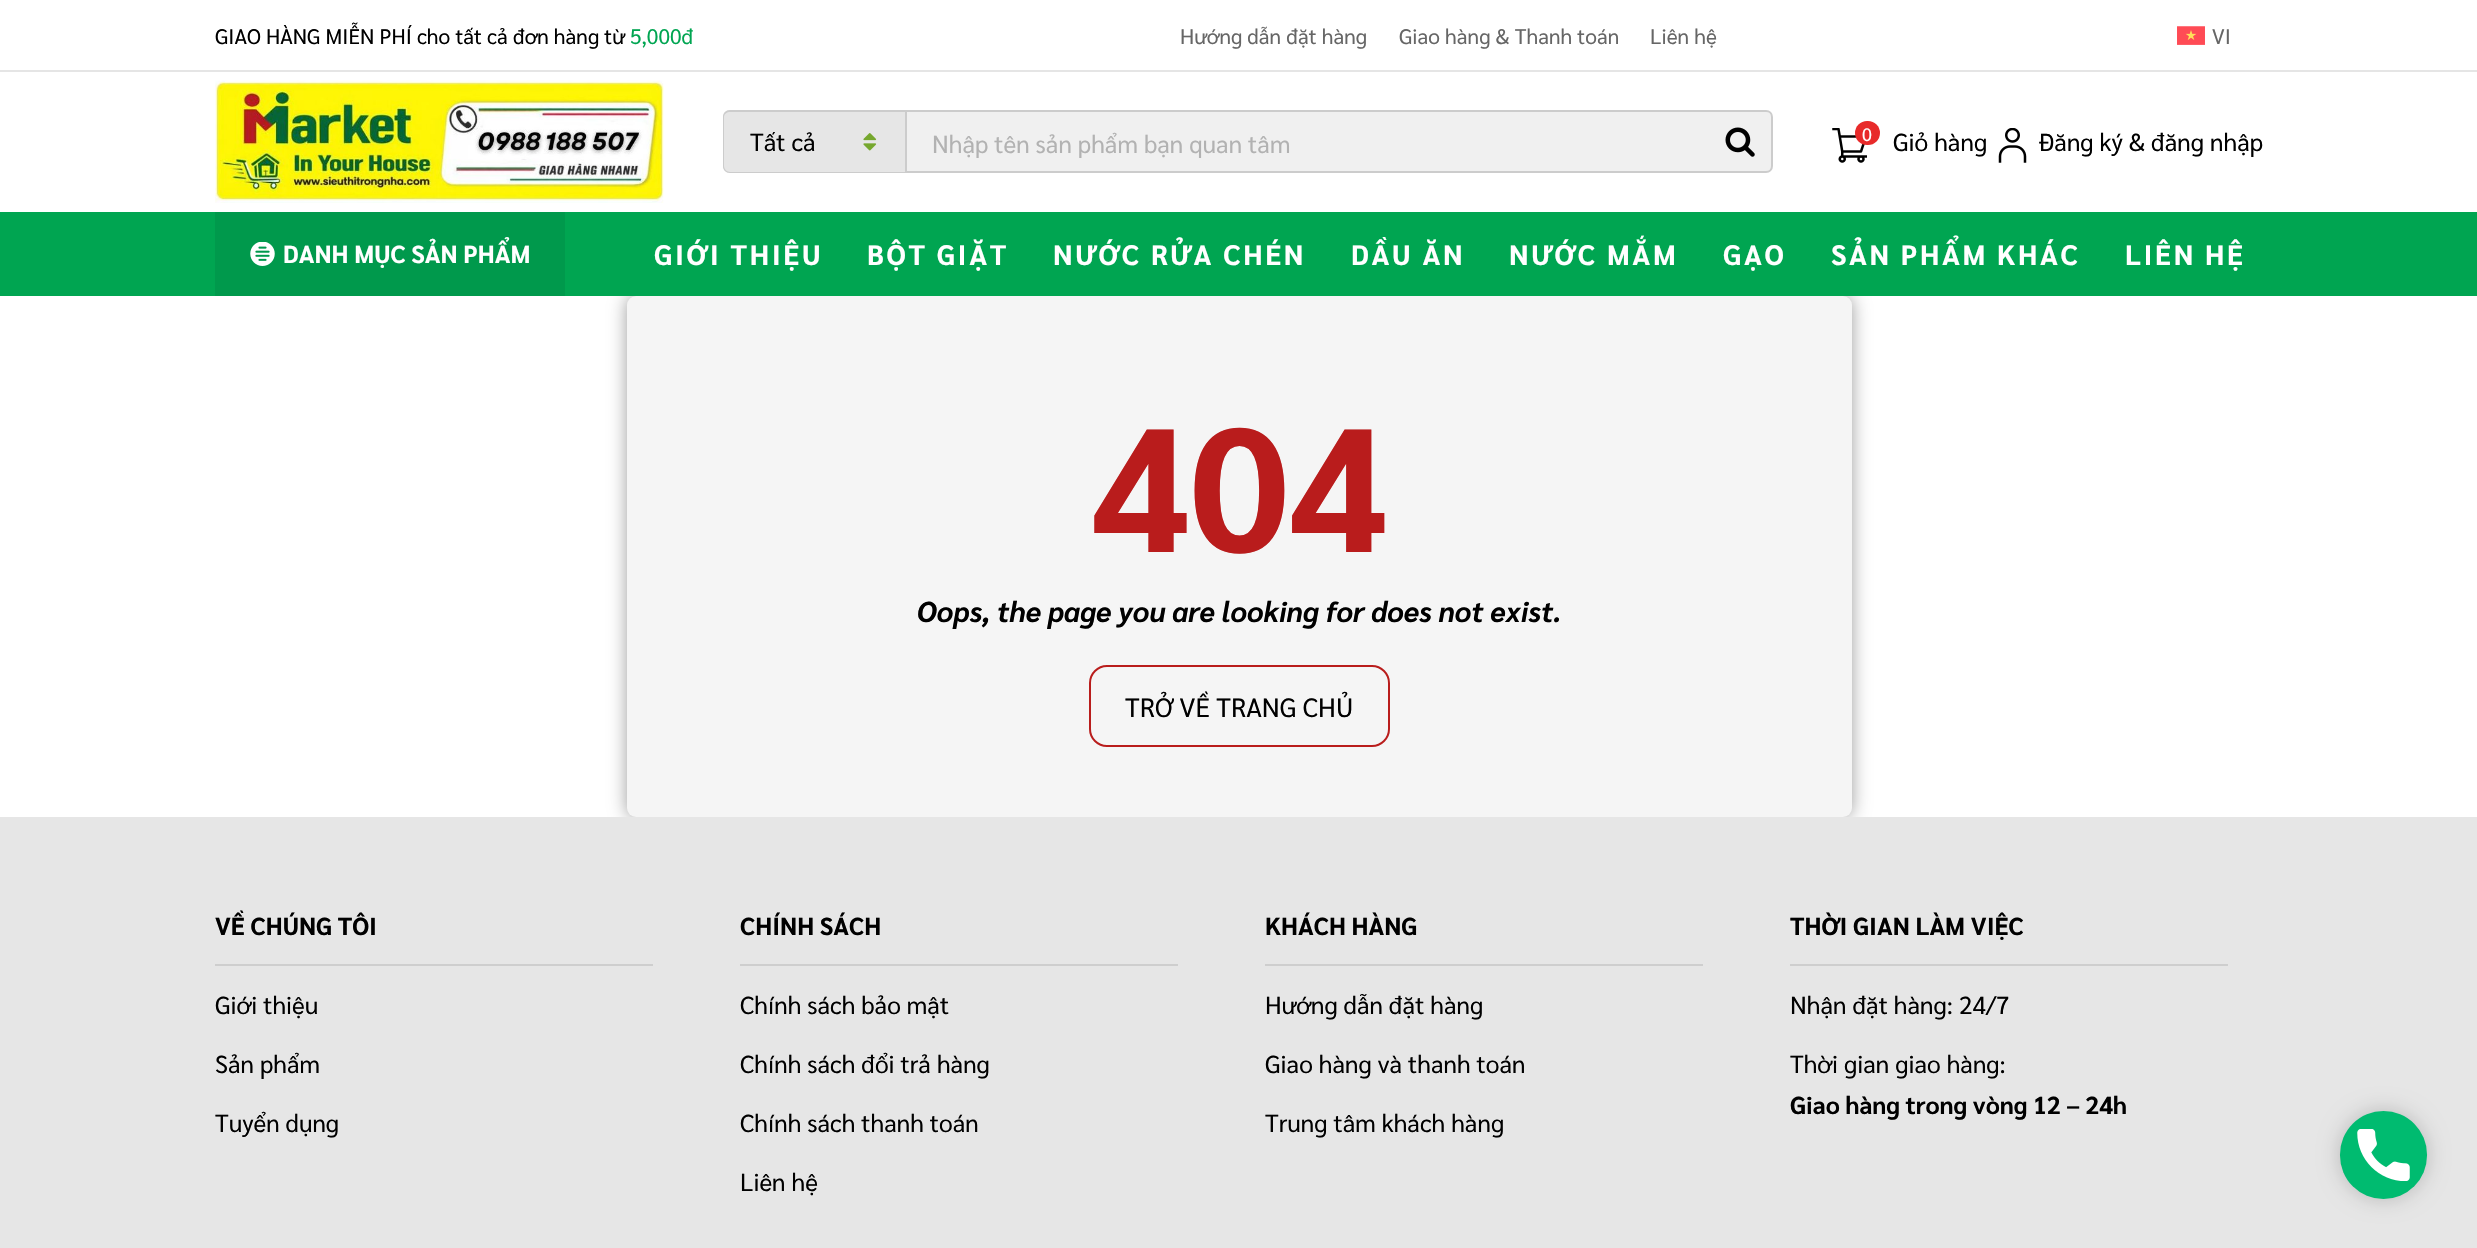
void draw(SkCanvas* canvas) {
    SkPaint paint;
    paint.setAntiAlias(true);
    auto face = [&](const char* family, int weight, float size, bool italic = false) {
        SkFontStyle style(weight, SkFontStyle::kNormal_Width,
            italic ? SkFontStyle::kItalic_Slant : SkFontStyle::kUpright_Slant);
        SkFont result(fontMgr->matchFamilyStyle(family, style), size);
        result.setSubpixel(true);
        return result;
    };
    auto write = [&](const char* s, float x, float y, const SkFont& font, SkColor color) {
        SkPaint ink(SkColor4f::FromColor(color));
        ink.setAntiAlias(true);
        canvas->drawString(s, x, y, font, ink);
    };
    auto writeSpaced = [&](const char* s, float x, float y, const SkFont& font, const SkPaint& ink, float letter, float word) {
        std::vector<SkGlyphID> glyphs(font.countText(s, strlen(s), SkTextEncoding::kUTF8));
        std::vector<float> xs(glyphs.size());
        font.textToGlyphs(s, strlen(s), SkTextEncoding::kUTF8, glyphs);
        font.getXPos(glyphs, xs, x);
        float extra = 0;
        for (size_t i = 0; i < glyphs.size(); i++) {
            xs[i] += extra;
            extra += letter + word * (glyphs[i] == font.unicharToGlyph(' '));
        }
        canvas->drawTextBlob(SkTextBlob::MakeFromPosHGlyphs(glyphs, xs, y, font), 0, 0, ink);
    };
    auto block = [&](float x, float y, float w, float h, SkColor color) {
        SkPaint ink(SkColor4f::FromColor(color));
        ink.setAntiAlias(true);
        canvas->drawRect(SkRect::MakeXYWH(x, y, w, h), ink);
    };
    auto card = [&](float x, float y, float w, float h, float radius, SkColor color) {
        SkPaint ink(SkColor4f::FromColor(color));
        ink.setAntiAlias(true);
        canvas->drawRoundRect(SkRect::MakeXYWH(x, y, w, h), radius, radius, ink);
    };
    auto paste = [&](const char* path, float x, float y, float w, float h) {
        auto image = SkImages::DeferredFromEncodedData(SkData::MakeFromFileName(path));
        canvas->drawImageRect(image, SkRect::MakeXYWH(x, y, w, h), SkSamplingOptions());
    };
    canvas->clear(SK_ColorWHITE);
    block(0, 70, 2477, 2, SkColorSetRGB(229, 229, 229));
    auto kFont1 = face("Sarabun", 400, 21);
    write("GIAO HÀNG MIỄN PHÍ cho tất cả đơn hàng từ", 215, 44, kFont1, SK_ColorBLACK);
    write("5,000đ", 630, 44, kFont1, SkColorSetRGB(0, 165, 81));
    write("Hướng dẫn đặt hàng", 1180, 44, kFont1, SkColorSetRGB(102, 102, 102));
    write("Giao hàng & Thanh toán", 1399, 44, kFont1, SkColorSetRGB(102, 102, 102));
    write("Liên hệ", 1650, 44, kFont1, SkColorSetRGB(102, 102, 102));
    paste("pic1.png", 2177, 26, 28, 19);
    write("VI", 2212, 44, kFont1, SkColorSetRGB(102, 102, 102));
    paste("pic2.png", 215, 80, 449, 123);
    paint.setColor(SkColorSetRGB(230, 230, 230));
    canvas->drawPath(SkPathBuilder().moveTo(730, 110).lineTo(905, 110).lineTo(905, 173).lineTo(730, 173).cubicTo(726, 173, 723, 170, 723, 166).lineTo(723, 117).cubicTo(723, 113, 726, 110, 730, 110).close().detach(), paint);
    paste("pic3.png", 863, 133, 14, 18);
    paint.setColor(SkColorSetRGB(204, 204, 204));
    canvas->drawPath(SkPathBuilder(SkPathFillType::kEvenOdd).moveTo(730, 110).lineTo(905, 110).lineTo(905, 173).lineTo(730, 173).cubicTo(726, 173, 723, 170, 723, 166).lineTo(723, 117).cubicTo(723, 113, 726, 110, 730, 110).close().moveTo(730, 112).lineTo(905, 112).lineTo(905, 172).lineTo(730, 172).cubicTo(727, 172, 724, 169, 724, 166).lineTo(724, 117).cubicTo(724, 114, 727, 112, 730, 112).close().detach(), paint);
    auto kFont2 = face("Sarabun", 400, 24.5f);
    write("Tất cả", 750, 151, kFont2, SK_ColorBLACK);
    paint.setColor(SkColorSetRGB(240, 240, 240));
    canvas->drawPath(SkPathBuilder().moveTo(906, 111).lineTo(1766, 111).cubicTo(1769.5f, 111, 1772, 113.5f, 1772, 117).lineTo(1772, 166).cubicTo(1772, 169.5f, 1769.5f, 172, 1766, 172).lineTo(906, 172).close().detach(), paint);
    paint.setStyle(SkPaint::kStroke_Style);
    paint.setStrokeWidth(2);
    paint.setColor(SkColorSetRGB(204, 204, 204));
    canvas->drawPath(SkPathBuilder().moveTo(906, 111).lineTo(1766, 111).cubicTo(1769.5f, 111, 1772, 113.5f, 1772, 117).lineTo(1772, 166).cubicTo(1772, 169.5f, 1769.5f, 172, 1766, 172).lineTo(906, 172).close().detach(), paint);
    canvas->save();
    canvas->clipRect(SkRect::MakeXYWH(933, 126, 775, 32));
    write("Nhập tên sản phẩm bạn quan tâm", 932, 153, kFont2, SkColorSetRGB(178, 178, 178));
    canvas->restore();
    paste("pic4.png", 1725, 127, 30, 30);
    paste("pic5.png", 1832, 128, 35, 35);
    card(1855, 121, 25, 24, 12, SkColorSetRGB(232, 42, 42));
    auto kFont3 = face("Sarabun", 400, 18);
    write("0", 1862, 141, kFont3, SK_ColorWHITE);
    write("Giỏ hàng", 1893, 151, kFont2, SK_ColorBLACK);
    paste("pic6.png", 1998, 128, 29, 35);
    write("Đăng ký & đăng nhập", 2039, 151, kFont2, SK_ColorBLACK);
    paint.setStyle(SkPaint::kFill_Style);
    paint.setColor(SkColorSetRGB(156, 156, 156));
    paint.setMaskFilter(SkMaskFilter::MakeBlur(kNormal_SkBlurStyle, 9));
    canvas->drawRoundRect(SkRect::MakeXYWH(627, 296, 1225, 521), 9, 9, paint);
    paint.setMaskFilter(nullptr);
    block(0, 212, 2477, 84, SkColorSetRGB(0, 165, 81));
    block(215, 212, 350, 84, SkColorSetRGB(0, 153, 76));
    paste("pic7.png", 250, 242, 25, 24);
    auto kFont4 = face("Sarabun", 700, 24.5f);
    write("DANH MỤC SẢN PHẨM", 283, 263, kFont4, SK_ColorWHITE);
    auto kFont5 = face("Sarabun", 700, 28);
    paint.setColor(SK_ColorWHITE);
    writeSpaced("GIỚI THIỆU", 654, 265, kFont5, paint, 2.6f, 0);
    writeSpaced("BỘT GIẶT", 867, 265, kFont5, paint, 2.6f, 0);
    writeSpaced("NƯỚC RỬA CHÉN", 1053, 265, kFont5, paint, 2.6f, 0);
    writeSpaced("DẦU ĂN", 1351, 265, kFont5, paint, 2.6f, 0);
    writeSpaced("NƯỚC MẮM", 1509, 265, kFont5, paint, 2.6f, 0);
    writeSpaced("GẠO", 1723, 265, kFont5, paint, 2.6f, 0);
    writeSpaced("SẢN PHẨM KHÁC", 1831, 265, kFont5, paint, 2.6f, 0);
    writeSpaced("LIÊN HỆ", 2125, 265, kFont5, paint, 2.6f, 0);
    card(627, 296, 1225, 521, 9, SkColorSetRGB(245, 245, 245));
    auto kFont6 = face("Sarabun", 700, 175);
    write("404", 1091, 552, kFont6, SkColorSetRGB(185, 28, 28));
    auto kFont7 = face("Sarabun", 700, 28.7f, true);
    write("Oops, the page you are looking for does not exist.", 917, 622, kFont7, SK_ColorBLACK);
    paint.setStyle(SkPaint::kStroke_Style);
    paint.setColor(SkColorSetRGB(185, 29, 28));
    canvas->drawRoundRect(SkRect::MakeXYWH(1090, 666, 299, 80), 17, 17, paint);
    auto kFont8 = face("Sarabun", 400, 26.25f);
    write("TRỞ VỀ TRANG CHỦ", 1125, 717, kFont8, SK_ColorBLACK);
    block(0, 817, 2477, 431, SkColorSetRGB(230, 230, 230));
    block(215, 964, 438, 2, SkColorSetRGB(206, 206, 206));
    write("VỀ CHÚNG TÔI", 215, 935, kFont4, SK_ColorBLACK);
    write("Giới thiệu", 215, 1014, kFont2, SK_ColorBLACK);
    write("Sản phẩm", 215, 1073, kFont2, SK_ColorBLACK);
    write("Tuyển dụng", 215, 1132, kFont2, SK_ColorBLACK);
    block(740, 964, 438, 2, SkColorSetRGB(206, 206, 206));
    write("CHÍNH SÁCH", 740, 935, kFont4, SK_ColorBLACK);
    write("Chính sách bảo mật", 740, 1014, kFont2, SK_ColorBLACK);
    write("Chính sách đổi trả hàng", 740, 1073, kFont2, SK_ColorBLACK);
    write("Chính sách thanh toán", 740, 1132, kFont2, SK_ColorBLACK);
    write("Liên hệ", 740, 1191, kFont2, SK_ColorBLACK);
    block(1265, 964, 438, 2, SkColorSetRGB(206, 206, 206));
    write("KHÁCH HÀNG", 1265, 935, kFont4, SK_ColorBLACK);
    write("Hướng dẫn đặt hàng", 1265, 1014, kFont2, SK_ColorBLACK);
    write("Giao hàng và thanh toán", 1265, 1073, kFont2, SK_ColorBLACK);
    write("Trung tâm khách hàng", 1265, 1132, kFont2, SK_ColorBLACK);
    block(1790, 964, 438, 2, SkColorSetRGB(206, 206, 206));
    write("THỜI GIAN LÀM VIỆC", 1790, 935, kFont4, SK_ColorBLACK);
    write("Nhận đặt hàng: 24/7", 1790, 1014, kFont2, SK_ColorBLACK);
    write("Thời gian giao hàng:", 1790, 1073, kFont2, SK_ColorBLACK);
    write("Giao hàng trong vòng 12 – 24h", 1790, 1114, kFont4, SK_ColorBLACK);
    paint.setStyle(SkPaint::kFill_Style);
    paint.setColor(SkColorSetARGB(51, 0, 0, 0));
    paint.setMaskFilter(SkMaskFilter::MakeBlur(kNormal_SkBlurStyle, 10.5f));
    canvas->drawRoundRect(SkRect::MakeXYWH(2340, 1111, 87, 88), 43.5f, 43.5f, paint);
    paint.setMaskFilter(nullptr);
    card(2340, 1111, 87, 88, 43.5f, SkColorSetRGB(0, 187, 112));
    paste("pic8.png", 2357, 1129, 53, 52);
}
